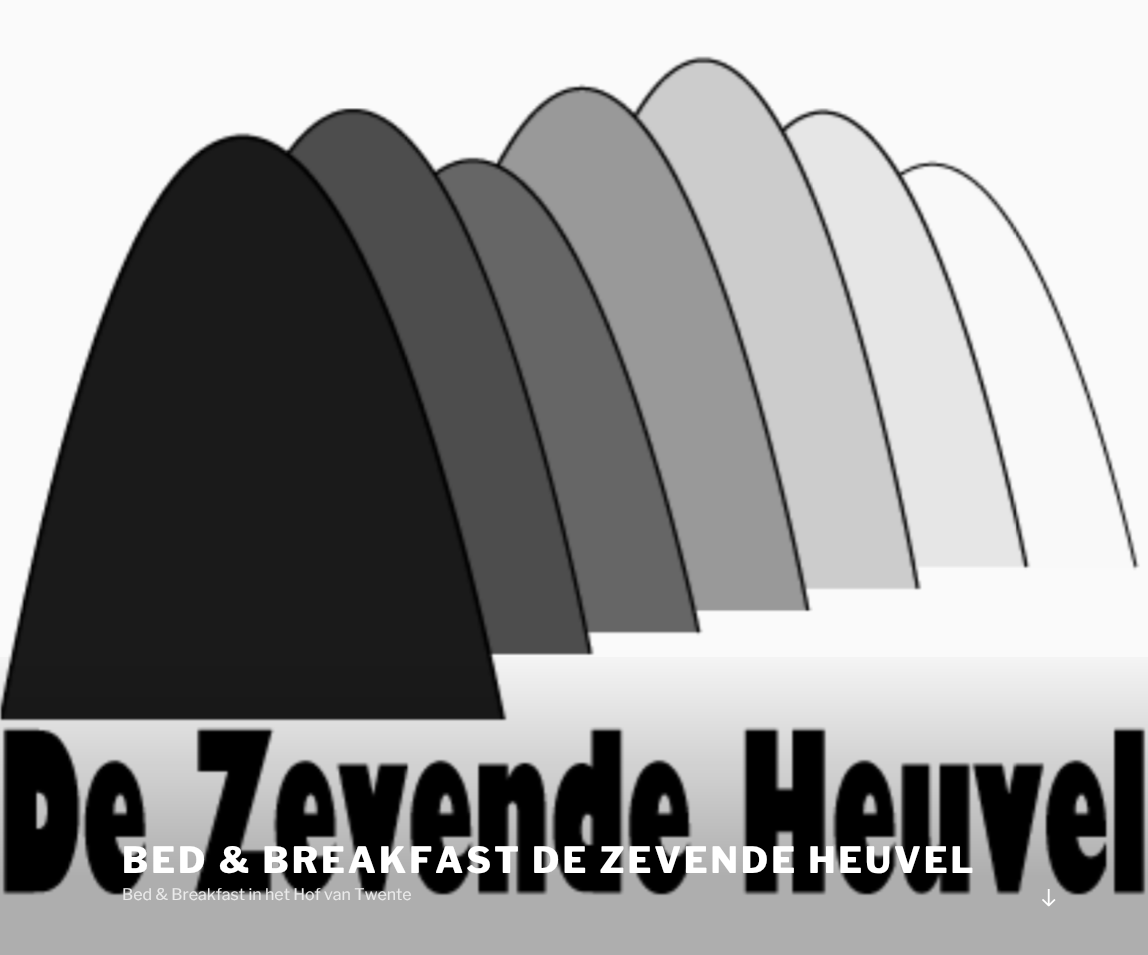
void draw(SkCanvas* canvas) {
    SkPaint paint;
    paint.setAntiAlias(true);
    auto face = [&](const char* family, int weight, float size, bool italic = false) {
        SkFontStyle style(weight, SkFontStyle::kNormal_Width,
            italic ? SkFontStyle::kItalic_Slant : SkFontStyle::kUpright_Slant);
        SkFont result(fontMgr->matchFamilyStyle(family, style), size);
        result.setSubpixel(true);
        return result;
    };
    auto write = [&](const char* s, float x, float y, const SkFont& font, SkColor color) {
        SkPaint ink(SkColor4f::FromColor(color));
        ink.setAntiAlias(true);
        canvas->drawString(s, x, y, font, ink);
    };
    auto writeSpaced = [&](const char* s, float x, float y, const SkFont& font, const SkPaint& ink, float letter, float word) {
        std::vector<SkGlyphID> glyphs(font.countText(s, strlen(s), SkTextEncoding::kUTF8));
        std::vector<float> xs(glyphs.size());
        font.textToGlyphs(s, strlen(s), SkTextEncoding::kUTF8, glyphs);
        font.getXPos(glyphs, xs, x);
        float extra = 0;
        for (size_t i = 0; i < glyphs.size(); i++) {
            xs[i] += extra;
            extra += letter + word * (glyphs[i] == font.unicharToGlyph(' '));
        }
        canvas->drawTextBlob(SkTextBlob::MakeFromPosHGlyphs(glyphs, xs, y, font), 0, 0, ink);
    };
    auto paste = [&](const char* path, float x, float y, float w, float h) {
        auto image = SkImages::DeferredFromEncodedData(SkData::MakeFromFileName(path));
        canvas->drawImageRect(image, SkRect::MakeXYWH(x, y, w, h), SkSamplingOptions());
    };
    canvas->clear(SkColorSetRGB(250, 250, 250));
    paste("pic1.png", 0, 56, 1146, 840);
    {
        const SkColor colors[] = {SkColorSetARGB(0, 0, 0, 0), SkColorSetARGB(77, 0, 0, 0), SkColorSetARGB(77, 0, 0, 0)};
        const float stops[] = {0, 0.75f, 1};
        const SkPoint ends[] = {{574, 640}, {574, 955}};
        paint.setShader(SkGradientShader::MakeLinear(ends, colors, stops, 3, SkTileMode::kClamp));
        paint.setAlpha(255);
    }
    canvas->drawRect(SkRect::MakeXYWH(0, 657, 1148, 298), paint);
    auto kFont1 = face("Libre Franklin", 100, 36);
    paint.setShader(nullptr);
    paint.setColor(SK_ColorWHITE);
    writeSpaced("BED & BREAKFAST DE ZEVENDE HEUVEL", 122, 873, kFont1, paint, 2.9f, 0);
    auto kFont2 = face("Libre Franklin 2", 100, 16);
    write("Bed & Breakfast in het Hof van Twente", 122, 900, kFont2, SkColorSetRGB(234, 234, 234));
    paste("pic2.png", 1042, 889, 14, 18);
}
